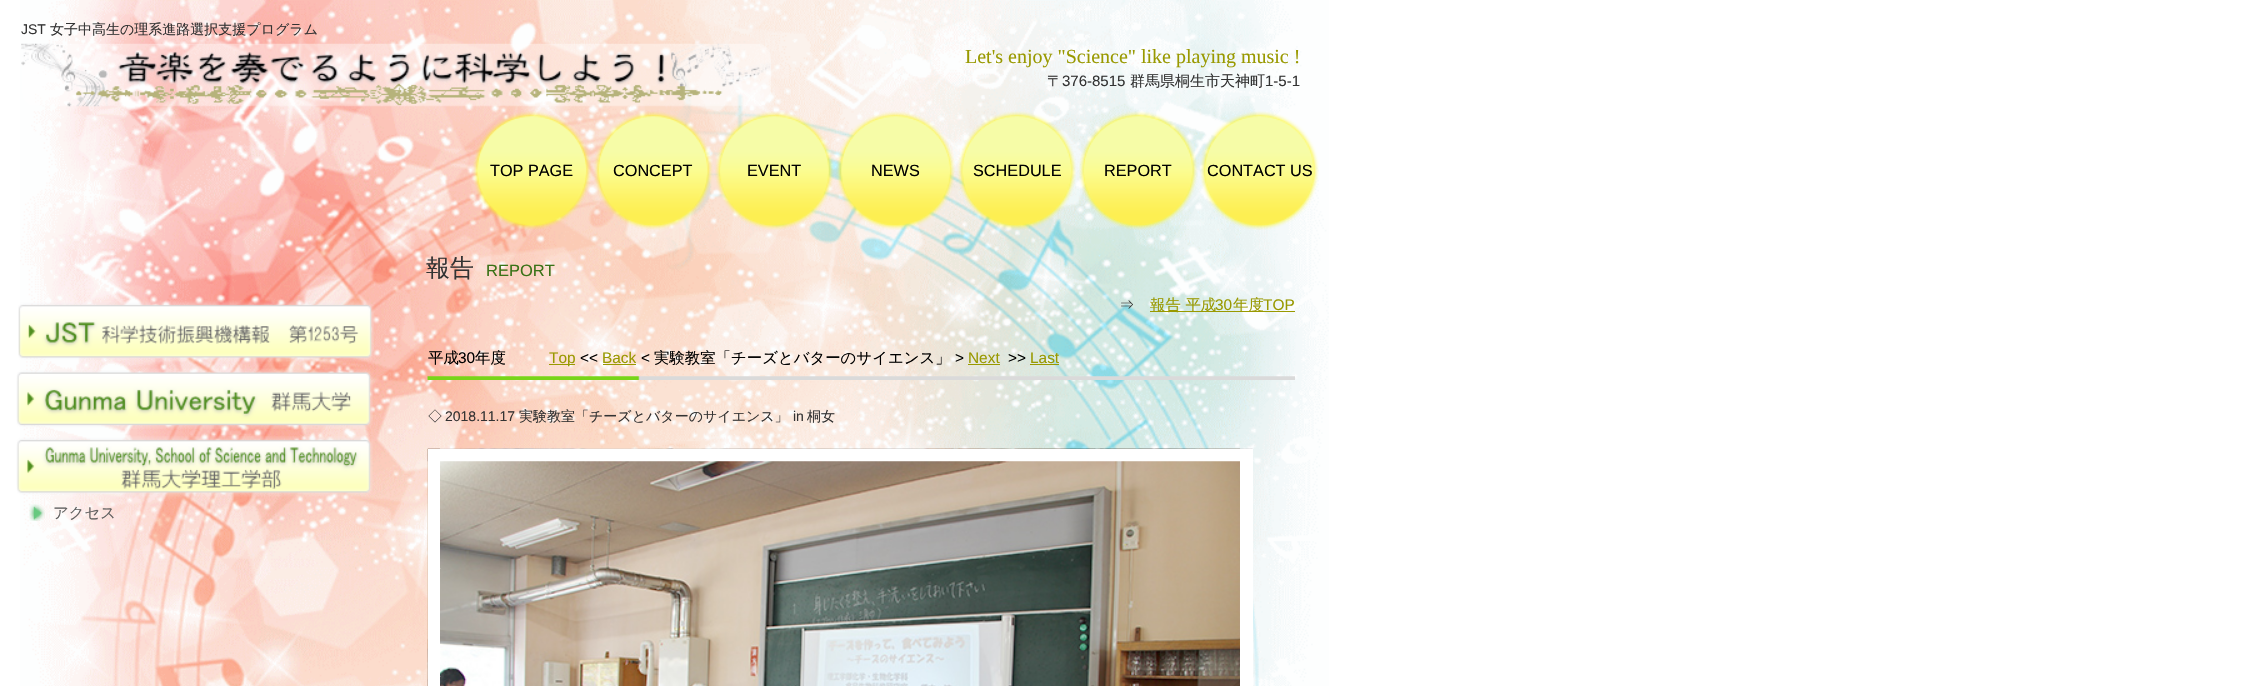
void draw(SkCanvas* canvas) {
    SkPaint paint;
    paint.setAntiAlias(true);
    auto face = [&](const char* family, int weight, float size, bool italic = false) {
        SkFontStyle style(weight, SkFontStyle::kNormal_Width,
            italic ? SkFontStyle::kItalic_Slant : SkFontStyle::kUpright_Slant);
        SkFont result(fontMgr->matchFamilyStyle(family, style), size);
        result.setSubpixel(true);
        return result;
    };
    auto write = [&](const char* s, float x, float y, const SkFont& font, SkColor color) {
        SkPaint ink(SkColor4f::FromColor(color));
        ink.setAntiAlias(true);
        canvas->drawString(s, x, y, font, ink);
    };
    auto block = [&](float x, float y, float w, float h, SkColor color) {
        SkPaint ink(SkColor4f::FromColor(color));
        ink.setAntiAlias(true);
        canvas->drawRect(SkRect::MakeXYWH(x, y, w, h), ink);
    };
    auto paste = [&](const char* path, float x, float y, float w, float h) {
        auto image = SkImages::DeferredFromEncodedData(SkData::MakeFromFileName(path));
        canvas->drawImageRect(image, SkRect::MakeXYWH(x, y, w, h), SkSamplingOptions());
    };
    canvas->clear(SK_ColorWHITE);
    paste("pic1.png", 20, 0, 1309, 686);
    auto kFont1 = face("Liberation Sans", 400, 14);
    write("JST", 21, 34, kFont1, SkColorSetRGB(51, 51, 51));
    auto kFont2 = face("WenQuanYi Zen Hei", 500, 14);
    write("女子中高生の理系進路選択支援プログラム", 50, 34, kFont2, SkColorSetRGB(51, 51, 51));
    paste("pic2.png", 21, 43, 750, 64);
    auto kFont3 = face("Liberation Serif", 400, 20);
    write("Let's enjoy \"Science\" like playing music !", 965, 63, kFont3, SkColorSetRGB(153, 153, 0));
    auto kFont4 = face("WenQuanYi Zen Hei", 500, 15);
    write("〒", 1047, 86, kFont4, SkColorSetRGB(51, 51, 51));
    auto kFont5 = face("Liberation Sans", 400, 15);
    write("376-8515", 1062, 86, kFont5, SkColorSetRGB(51, 51, 51));
    write("群馬県桐生市天神町", 1130, 86, kFont4, SkColorSetRGB(51, 51, 51));
    write("1-5-1", 1265, 86, kFont5, SkColorSetRGB(51, 51, 51));
    paste("pic3.png", 472, 111, 119, 119);
    auto kFont6 = face("Liberation Sans", 400, 16.25f);
    write("TOP PAGE", 490, 176, kFont6, SK_ColorBLACK);
    paste("pic4.png", 594, 111, 119, 119);
    write("CONCEPT", 613, 176, kFont6, SK_ColorBLACK);
    paste("pic5.png", 715, 111, 119, 119);
    write("EVENT", 747, 176, kFont6, SK_ColorBLACK);
    paste("pic6.png", 836, 111, 119, 119);
    write("NEWS", 871, 176, kFont6, SK_ColorBLACK);
    paste("pic7.png", 957, 111, 119, 119);
    write("SCHEDULE", 973, 176, kFont6, SK_ColorBLACK);
    paste("pic8.png", 1079, 111, 119, 119);
    write("REPORT", 1104, 176, kFont6, SK_ColorBLACK);
    paste("pic9.png", 1200, 111, 119, 119);
    write("CONTACT US", 1207, 176, kFont6, SK_ColorBLACK);
    auto kFont7 = face("WenQuanYi Zen Hei", 500, 24);
    write("報告", 426, 276, kFont7, SkColorSetRGB(51, 51, 51));
    auto kFont8 = face("Liberation Sans", 400, 16.5f);
    write("REPORT", 486, 276, kFont8, SkColorSetRGB(58, 114, 23));
    auto kFont9 = face("WenQuanYi Zen Hei", 500, 15.4f);
    write("⇒", 1119, 310, kFont9, SkColorSetRGB(51, 51, 51));
    block(1150, 311, 145, 1, SkColorSetRGB(153, 153, 0));
    write("報告 平成", 1150, 310, kFont9, SkColorSetRGB(153, 153, 0));
    auto kFont10 = face("Liberation Sans", 400, 15.4f);
    write("30", 1215, 310, kFont10, SkColorSetRGB(153, 153, 0));
    write("年度", 1233, 310, kFont9, SkColorSetRGB(153, 153, 0));
    write("TOP", 1263, 310, kFont10, SkColorSetRGB(153, 153, 0));
    paste("pic10.png", 427, 376, 868, 4);
    write("平成", 428, 363, kFont9, SK_ColorBLACK);
    write("30", 458, 363, kFont10, SK_ColorBLACK);
    write("年度", 475, 363, kFont9, SK_ColorBLACK);
    block(549, 364, 26, 1, SkColorSetRGB(153, 153, 0));
    write("Top", 549, 363, kFont10, SkColorSetRGB(153, 153, 0));
    write("<<", 580, 363, kFont10, SK_ColorBLACK);
    write("Back", 602, 363, kFont10, SkColorSetRGB(153, 153, 0));
    block(603, 364, 33, 1, SkColorSetRGB(153, 153, 0));
    write("<", 641, 363, kFont10, SK_ColorBLACK);
    write("実験教室「チーズとバターのサイエンス」", 654, 363, kFont9, SK_ColorBLACK);
    write(">", 955, 363, kFont10, SK_ColorBLACK);
    write("Next", 968, 363, kFont10, SkColorSetRGB(153, 153, 0));
    block(968, 364, 32, 1, SkColorSetRGB(153, 153, 0));
    write(">>", 1008, 363, kFont10, SK_ColorBLACK);
    write("Last", 1030, 363, kFont10, SkColorSetRGB(153, 153, 0));
    block(1030, 364, 29, 1, SkColorSetRGB(153, 153, 0));
    write("◇", 428, 421, kFont2, SkColorSetRGB(51, 51, 51));
    write("2018.11.17", 445, 421, kFont1, SkColorSetRGB(51, 51, 51));
    write("実験教室「チーズとバターのサイエンス」", 519, 421, kFont2, SkColorSetRGB(51, 51, 51));
    write("in", 793, 421, kFont1, SkColorSetRGB(51, 51, 51));
    write("桐女", 807, 421, kFont2, SkColorSetRGB(51, 51, 51));
    paste("pic11.png", 427, 448, 826, 238);
    paint.setStyle(SkPaint::kStroke_Style);
    paint.setStrokeWidth(13);
    paint.setColor(SK_ColorWHITE);
    canvas->drawRect(SkRect::MakeXYWH(434.5f, 455.5f, 812, 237), paint);
    paste("pic12.png", 440, 461, 80, 108);
    paste("pic13.png", 520, 461, 80, 108);
    paste("pic14.png", 600, 461, 80, 108);
    paste("pic15.png", 680, 461, 80, 1);
    paste("pic16.png", 760, 461, 80, 107);
    paste("pic17.png", 840, 461, 80, 108);
    paste("pic18.png", 920, 461, 80, 102);
    paste("pic19.png", 1000, 461, 80, 1);
    paste("pic20.png", 1080, 461, 80, 107);
    paste("pic21.png", 1160, 461, 80, 87);
    paste("pic22.png", 440, 568, 54, 109);
    paste("pic23.png", 537, 568, 63, 109);
    paste("pic24.png", 600, 568, 80, 109);
    paste("pic25.png", 680, 585, 76, 92);
    paste("pic26.png", 767, 569, 1, 60);
    paste("pic27.png", 840, 568, 80, 109);
    paste("pic28.png", 920, 593, 80, 25);
    paste("pic29.png", 1080, 569, 80, 108);
    paste("pic30.png", 1000, 612, 80, 64);
    paste("pic31.png", 1160, 639, 80, 38);
    paste("pic32.png", 440, 676, 26, 10);
    paste("pic33.png", 556, 676, 37, 10);
    paste("pic34.png", 604, 676, 44, 6);
    paste("pic35.png", 750, 676, 6, 1);
    paste("pic36.png", 856, 676, 45, 1);
    paste("pic37.png", 1012, 676, 1, 9);
    paste("pic38.png", 1122, 676, 38, 10);
    paste("pic39.png", 1160, 676, 80, 2);
    paste("pic40.png", 18, 300, 356, 62);
    paste("pic41.png", 16, 368, 357, 61);
    paste("pic42.png", 16, 436, 357, 61);
    paste("pic43.png", 29, 504, 16, 17);
    write("アクセス", 53, 518, kFont9, SkColorSetRGB(96, 96, 96));
}
